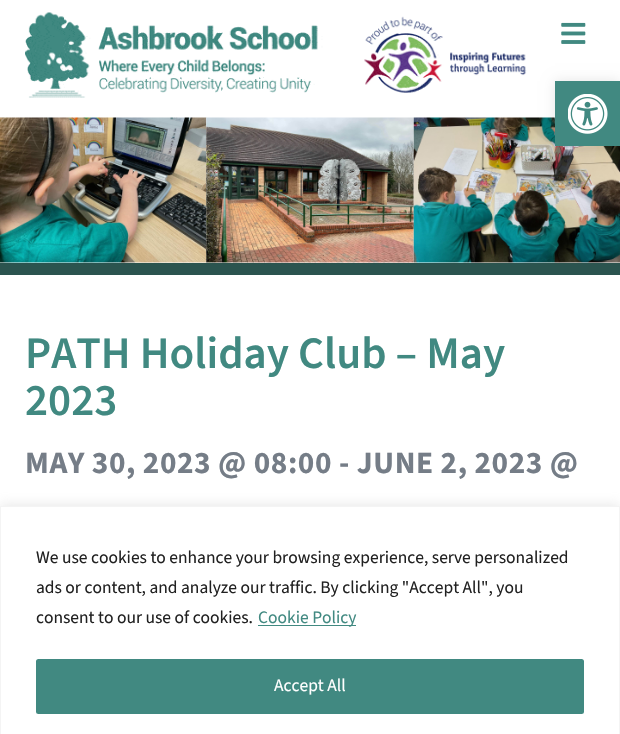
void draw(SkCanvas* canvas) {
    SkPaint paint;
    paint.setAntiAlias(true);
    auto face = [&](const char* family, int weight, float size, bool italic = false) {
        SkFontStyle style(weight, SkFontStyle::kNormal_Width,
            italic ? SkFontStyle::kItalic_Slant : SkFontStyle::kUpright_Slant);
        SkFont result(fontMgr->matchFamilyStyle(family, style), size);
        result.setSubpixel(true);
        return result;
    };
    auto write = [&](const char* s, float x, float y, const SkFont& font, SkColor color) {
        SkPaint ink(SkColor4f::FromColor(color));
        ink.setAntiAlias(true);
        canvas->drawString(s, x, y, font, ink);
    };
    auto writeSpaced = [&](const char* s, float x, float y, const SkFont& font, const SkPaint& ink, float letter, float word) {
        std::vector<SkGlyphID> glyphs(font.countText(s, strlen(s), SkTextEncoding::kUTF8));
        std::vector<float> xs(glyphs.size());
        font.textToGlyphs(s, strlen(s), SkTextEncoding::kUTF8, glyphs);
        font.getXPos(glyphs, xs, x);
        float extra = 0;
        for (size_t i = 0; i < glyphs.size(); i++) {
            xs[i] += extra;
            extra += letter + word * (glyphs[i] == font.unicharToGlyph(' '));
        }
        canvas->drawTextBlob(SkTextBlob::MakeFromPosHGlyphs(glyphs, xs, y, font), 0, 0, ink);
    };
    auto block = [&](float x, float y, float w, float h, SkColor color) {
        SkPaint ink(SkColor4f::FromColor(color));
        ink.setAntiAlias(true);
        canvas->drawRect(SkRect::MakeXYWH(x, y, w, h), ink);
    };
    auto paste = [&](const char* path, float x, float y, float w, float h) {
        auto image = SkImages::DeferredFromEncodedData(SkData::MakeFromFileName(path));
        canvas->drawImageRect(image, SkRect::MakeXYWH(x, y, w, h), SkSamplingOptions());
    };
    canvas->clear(SK_ColorWHITE);
    paste("pic4.png", 0, 117, 207, 146);
    paste("pic5.png", 206, 117, 208, 146);
    paste("pic6.png", 413, 117, 207, 146);
    paint.setColor(SkColorSetARGB(26, 0, 0, 0));
    paint.setMaskFilter(SkMaskFilter::MakeBlur(kNormal_SkBlurStyle, 6));
    canvas->drawRect(SkRect::MakeXYWH(555, 81, 65, 65), paint);
    paint.setMaskFilter(nullptr);
    block(555, 81, 65, 65, SkColorSetRGB(65, 137, 129));
    paste("pic1.png", 568, 94, 40, 40);
    paste("pic2.png", 25, 12, 502, 86);
    paste("pic3.png", 561, 22, 25, 22);
    block(0, 263, 620, 12, SkColorSetRGB(43, 84, 79));
    auto kFont1 = face("Source Sans 3", 600, 45);
    write("PATH Holiday Club – May", 25, 368, kFont1, SkColorSetRGB(65, 137, 129));
    write("2023", 25, 415, kFont1, SkColorSetRGB(65, 137, 129));
    auto kFont2 = face("Source Sans 3", 700, 31.25f);
    paint.setColor(SkColorSetRGB(117, 125, 135));
    writeSpaced("MAY 30, 2023 @ 08:00 - JUNE 2, 2023 @", 25, 473, kFont2, paint, 0.6f, 0);
    paint.setColor(SkColorSetARGB(77, 172, 171, 171));
    paint.setMaskFilter(SkMaskFilter::MakeBlur(kNormal_SkBlurStyle, 6));
    canvas->drawRect(SkRect::MakeXYWH(0, 505, 620, 229), paint);
    paint.setMaskFilter(nullptr);
    paint.setColor(SK_ColorWHITE);
    canvas->drawRect(SkRect::MakeXYWH(0.5f, 506.5f, 619, 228), paint);
    paint.setStyle(SkPaint::kStroke_Style);
    paint.setStrokeWidth(1);
    paint.setColor(SkColorSetRGB(244, 244, 244));
    canvas->drawRect(SkRect::MakeXYWH(0.5f, 506.5f, 619, 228), paint);
    auto kFont3 = face("Source Sans 3", 400, 17.5f);
    write("We use cookies to enhance your browsing experience, serve personalized", 36, 563, kFont3, SkColorSetRGB(33, 33, 33));
    write("ads or content, and analyze our traffic. By clicking \"Accept All\", you", 36, 593, kFont3, SkColorSetRGB(33, 33, 33));
    write("consent to our use of cookies.", 36, 623, kFont3, SkColorSetRGB(33, 33, 33));
    block(258, 625, 98, 1, SkColorSetRGB(65, 137, 129));
    write("Cookie Policy", 258, 623, kFont3, SkColorSetRGB(65, 137, 129));
    paint.setStyle(SkPaint::kFill_Style);
    paint.setColor(SkColorSetRGB(65, 137, 129));
    canvas->drawRoundRect(SkRect::MakeXYWH(37.5f, 660.5f, 545, 52), 1, 1, paint);
    paint.setStyle(SkPaint::kStroke_Style);
    paint.setStrokeWidth(3);
    canvas->drawRoundRect(SkRect::MakeXYWH(37.5f, 660.5f, 545, 52), 1, 1, paint);
    write("Accept All", 274, 691, kFont3, SK_ColorWHITE);
}
